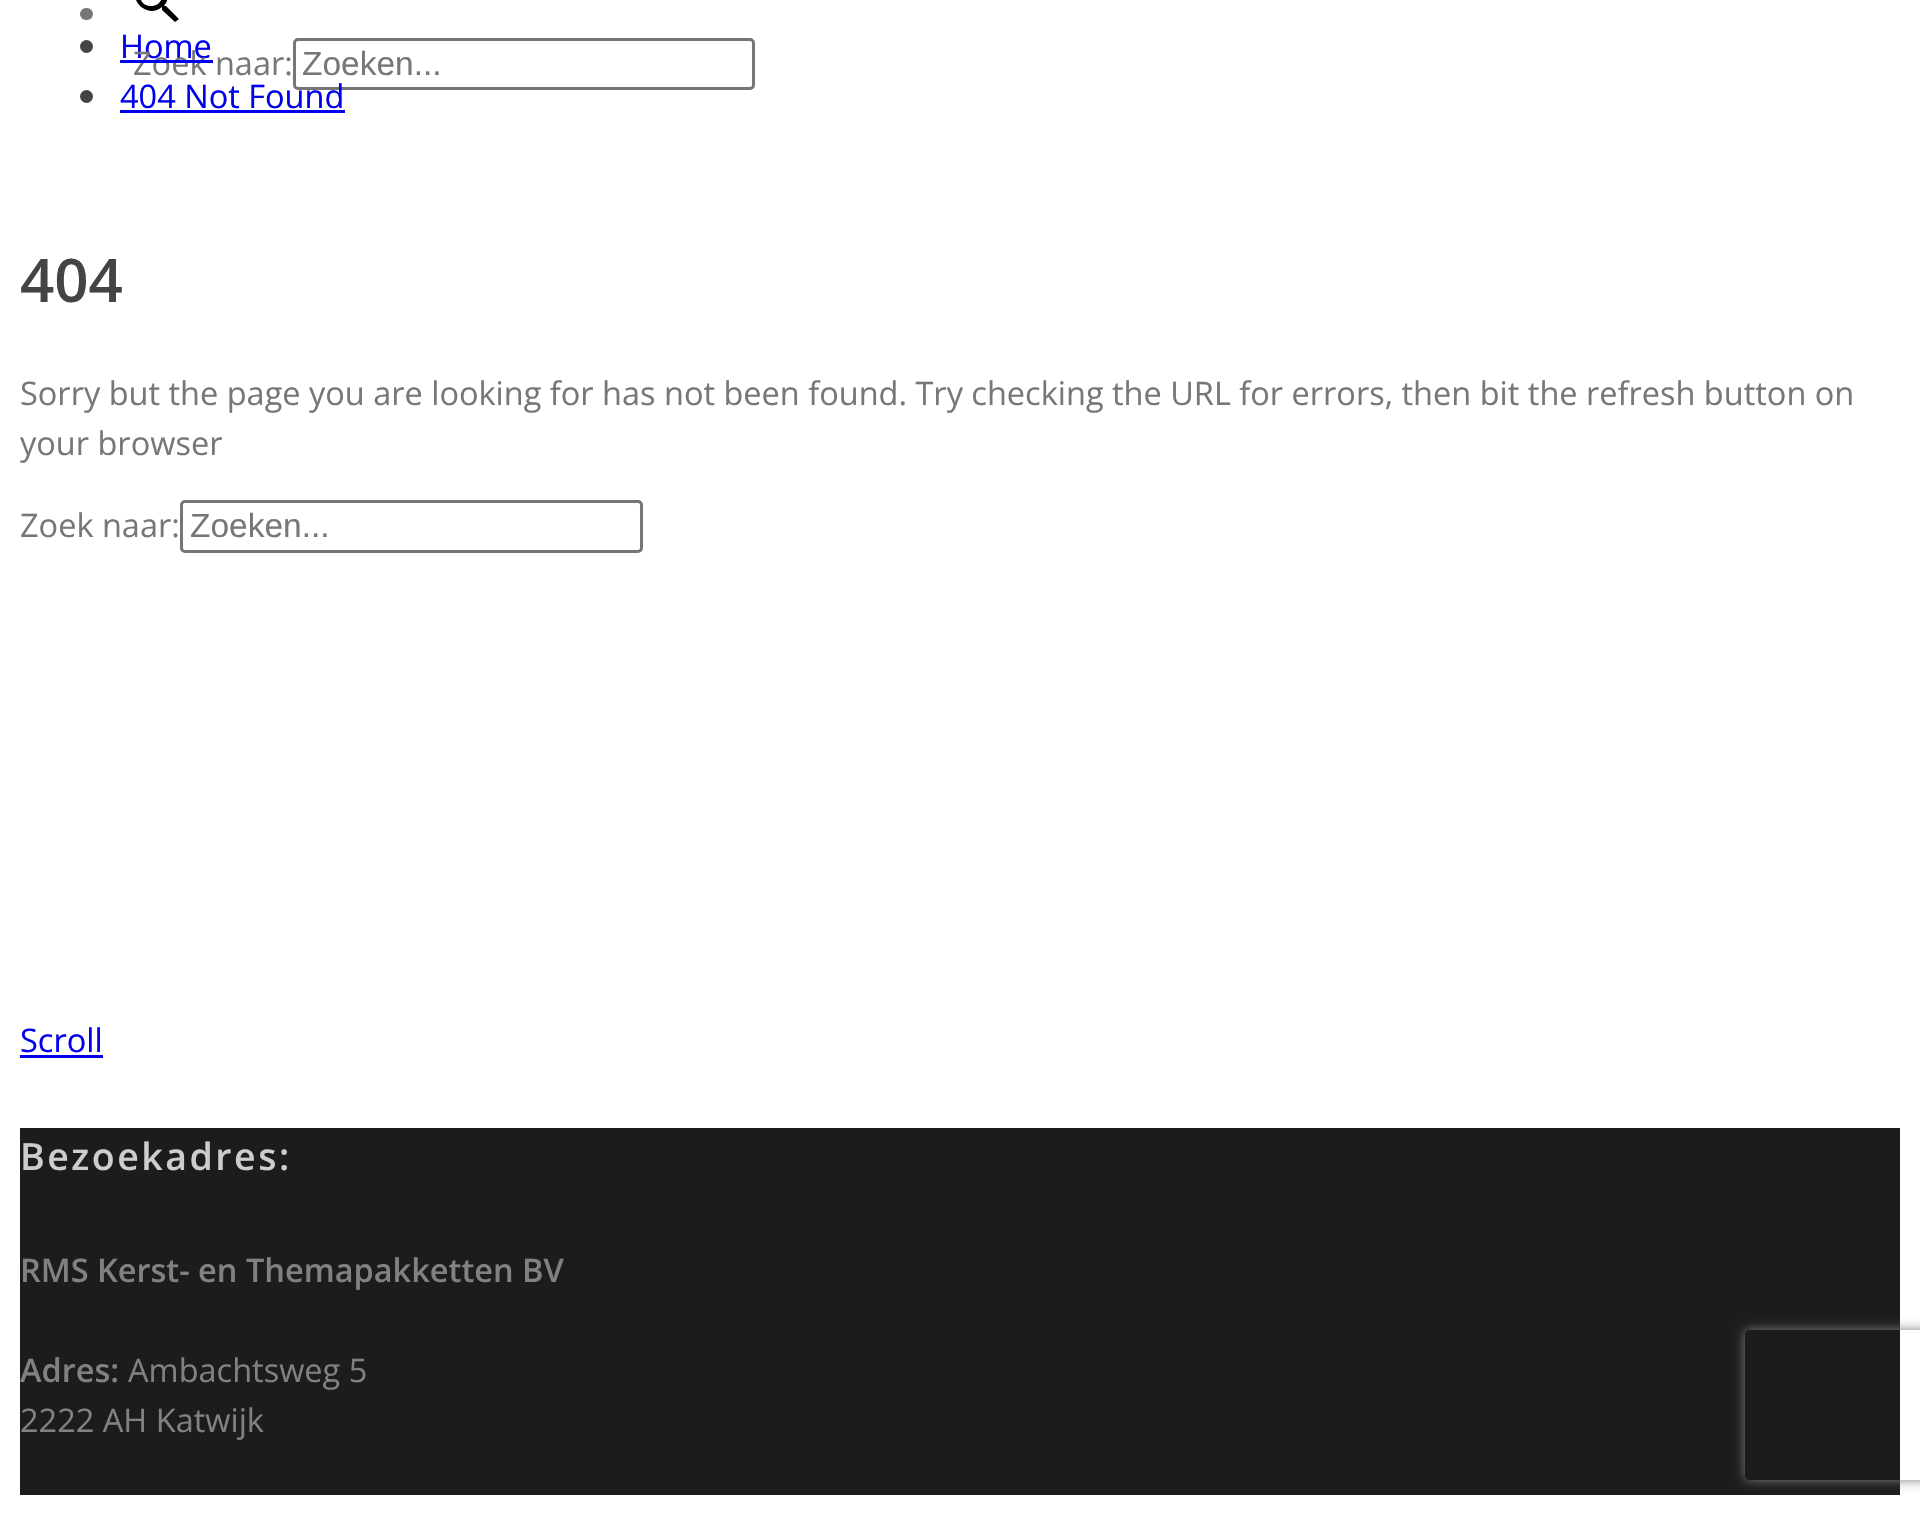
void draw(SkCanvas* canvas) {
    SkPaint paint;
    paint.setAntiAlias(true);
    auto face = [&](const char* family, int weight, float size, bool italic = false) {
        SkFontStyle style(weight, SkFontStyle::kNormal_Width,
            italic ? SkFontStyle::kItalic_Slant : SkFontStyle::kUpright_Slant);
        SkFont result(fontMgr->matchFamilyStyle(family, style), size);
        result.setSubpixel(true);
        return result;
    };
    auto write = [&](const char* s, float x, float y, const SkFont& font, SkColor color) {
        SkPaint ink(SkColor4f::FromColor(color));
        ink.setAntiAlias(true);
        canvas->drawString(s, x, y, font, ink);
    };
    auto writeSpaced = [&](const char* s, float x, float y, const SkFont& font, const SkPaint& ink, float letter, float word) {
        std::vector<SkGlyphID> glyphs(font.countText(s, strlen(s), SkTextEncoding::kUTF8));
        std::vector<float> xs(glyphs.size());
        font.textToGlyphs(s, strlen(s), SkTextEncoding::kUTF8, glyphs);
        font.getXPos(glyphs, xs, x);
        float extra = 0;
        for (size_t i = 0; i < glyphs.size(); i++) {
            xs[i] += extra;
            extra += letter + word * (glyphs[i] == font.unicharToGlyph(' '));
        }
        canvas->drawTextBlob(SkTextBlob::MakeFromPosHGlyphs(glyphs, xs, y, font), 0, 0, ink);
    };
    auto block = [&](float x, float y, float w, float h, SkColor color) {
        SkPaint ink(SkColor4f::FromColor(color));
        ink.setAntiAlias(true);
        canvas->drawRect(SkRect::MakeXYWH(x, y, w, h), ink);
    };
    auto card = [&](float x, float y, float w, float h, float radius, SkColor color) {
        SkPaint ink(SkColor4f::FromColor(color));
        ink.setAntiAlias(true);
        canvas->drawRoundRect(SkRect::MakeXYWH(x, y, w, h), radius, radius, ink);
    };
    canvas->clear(SK_ColorWHITE);
    paint.setColor(SkColorSetRGB(68, 68, 68));
    canvas->drawCircle(86.5f, 46.5f, 6.5f, paint);
    auto kFont1 = face("Open Sans", 400, 32.5f);
    write("Home", 120, 58, kFont1, SkColorSetRGB(0, 0, 238));
    write("Zoek naar:", 133, 75, kFont1, SkColorSetRGB(119, 119, 119));
    block(120, 60, 93, 3, SkColorSetRGB(0, 0, 238));
    canvas->drawCircle(86.5f, 96.5f, 6.5f, paint);
    paint.setStyle(SkPaint::kStroke_Style);
    paint.setStrokeWidth(3);
    paint.setColor(SkColorSetRGB(118, 118, 118));
    canvas->drawRoundRect(SkRect::MakeXYWH(294.5f, 39.5f, 459, 49), 3.5f, 3.5f, paint);
    write("404 Not Found", 120, 108, kFont1, SkColorSetRGB(0, 0, 238));
    block(120, 110, 225, 3, SkColorSetRGB(0, 0, 238));
    card(80, 8, 13, 12, 6, SkColorSetRGB(119, 119, 119));
    paint.setStyle(SkPaint::kFill_Style);
    paint.setColor(SK_ColorBLACK);
    canvas->drawPath(SkPathBuilder().moveTo(166, 6).lineTo(164, 6).cubicTo(177, -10, 155, -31, 140, -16).cubicTo(125, -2, 147, 20, 162, 7).lineTo(162, 8).lineTo(162, 10).lineTo(175, 22).lineTo(179, 19).close().moveTo(151, 6).cubicTo(136, 6, 136, -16, 151, -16).cubicTo(166, -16, 166, 6, 151, 6).close().detach(), paint);
    auto kFont2 = face("Liberation Sans", 400, 33.5f);
    write("Zoeken...", 302, 75, kFont2, SkColorSetRGB(119, 119, 119));
    auto kFont3 = face("Open Sans", 600, 60);
    write("404", 20, 302, kFont3, SkColorSetRGB(68, 68, 68));
    write("Sorry but the page you are looking for has not been found. Try checking the URL for errors, then bit the refresh button on", 20, 405, kFont1, SkColorSetRGB(119, 119, 119));
    write("your browser", 20, 455, kFont1, SkColorSetRGB(119, 119, 119));
    write("Zoek naar:", 20, 537, kFont1, SkColorSetRGB(119, 119, 119));
    paint.setStyle(SkPaint::kStroke_Style);
    paint.setColor(SkColorSetRGB(118, 118, 118));
    canvas->drawRoundRect(SkRect::MakeXYWH(181.5f, 501.5f, 460, 50), 3.5f, 3.5f, paint);
    write("Zoeken...", 190, 537, kFont2, SkColorSetRGB(119, 119, 119));
    write("Scroll", 20, 1052, kFont1, SkColorSetRGB(0, 0, 238));
    block(20, 1055, 83, 3, SkColorSetRGB(0, 0, 238));
    block(20, 1128, 1880, 367, SkColorSetRGB(28, 28, 28));
    auto kFont4 = face("Open Sans", 600, 37.5f);
    paint.setStyle(SkPaint::kFill_Style);
    paint.setColor(SkColorSetRGB(205, 205, 205));
    writeSpaced("Bezoekadres:", 20, 1170, kFont4, paint, 2.5f, 0);
    auto kFont5 = face("Open Sans", 600, 32.5f);
    write("RMS Kerst- en Themapakketten BV", 20, 1282, kFont5, SkColorSetRGB(129, 129, 129));
    write("Adres:", 20, 1382, kFont5, SkColorSetRGB(129, 129, 129));
    write("Ambachtsweg 5", 128, 1382, kFont1, SkColorSetRGB(129, 129, 129));
    write("2222 AH Katwijk", 20, 1432, kFont1, SkColorSetRGB(129, 129, 129));
    canvas->save();
    canvas->clipPath(SkPathBuilder(SkPathFillType::kEvenOdd).moveTo(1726, 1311).lineTo(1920, 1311).lineTo(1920, 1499).lineTo(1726, 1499).close().moveTo(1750, 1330).lineTo(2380, 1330).cubicTo(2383, 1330, 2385, 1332, 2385, 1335).lineTo(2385, 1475).cubicTo(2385, 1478, 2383, 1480, 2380, 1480).lineTo(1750, 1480).cubicTo(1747, 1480, 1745, 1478, 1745, 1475).lineTo(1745, 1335).cubicTo(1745, 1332, 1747, 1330, 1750, 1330).close().detach(), true);
    paint.setColor(SkColorSetRGB(128, 128, 128));
    paint.setMaskFilter(SkMaskFilter::MakeBlur(kNormal_SkBlurStyle, 6));
    canvas->drawRoundRect(SkRect::MakeXYWH(1745, 1330, 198, 150), 5, 5, paint);
    paint.setMaskFilter(nullptr);
    canvas->restore();
}
